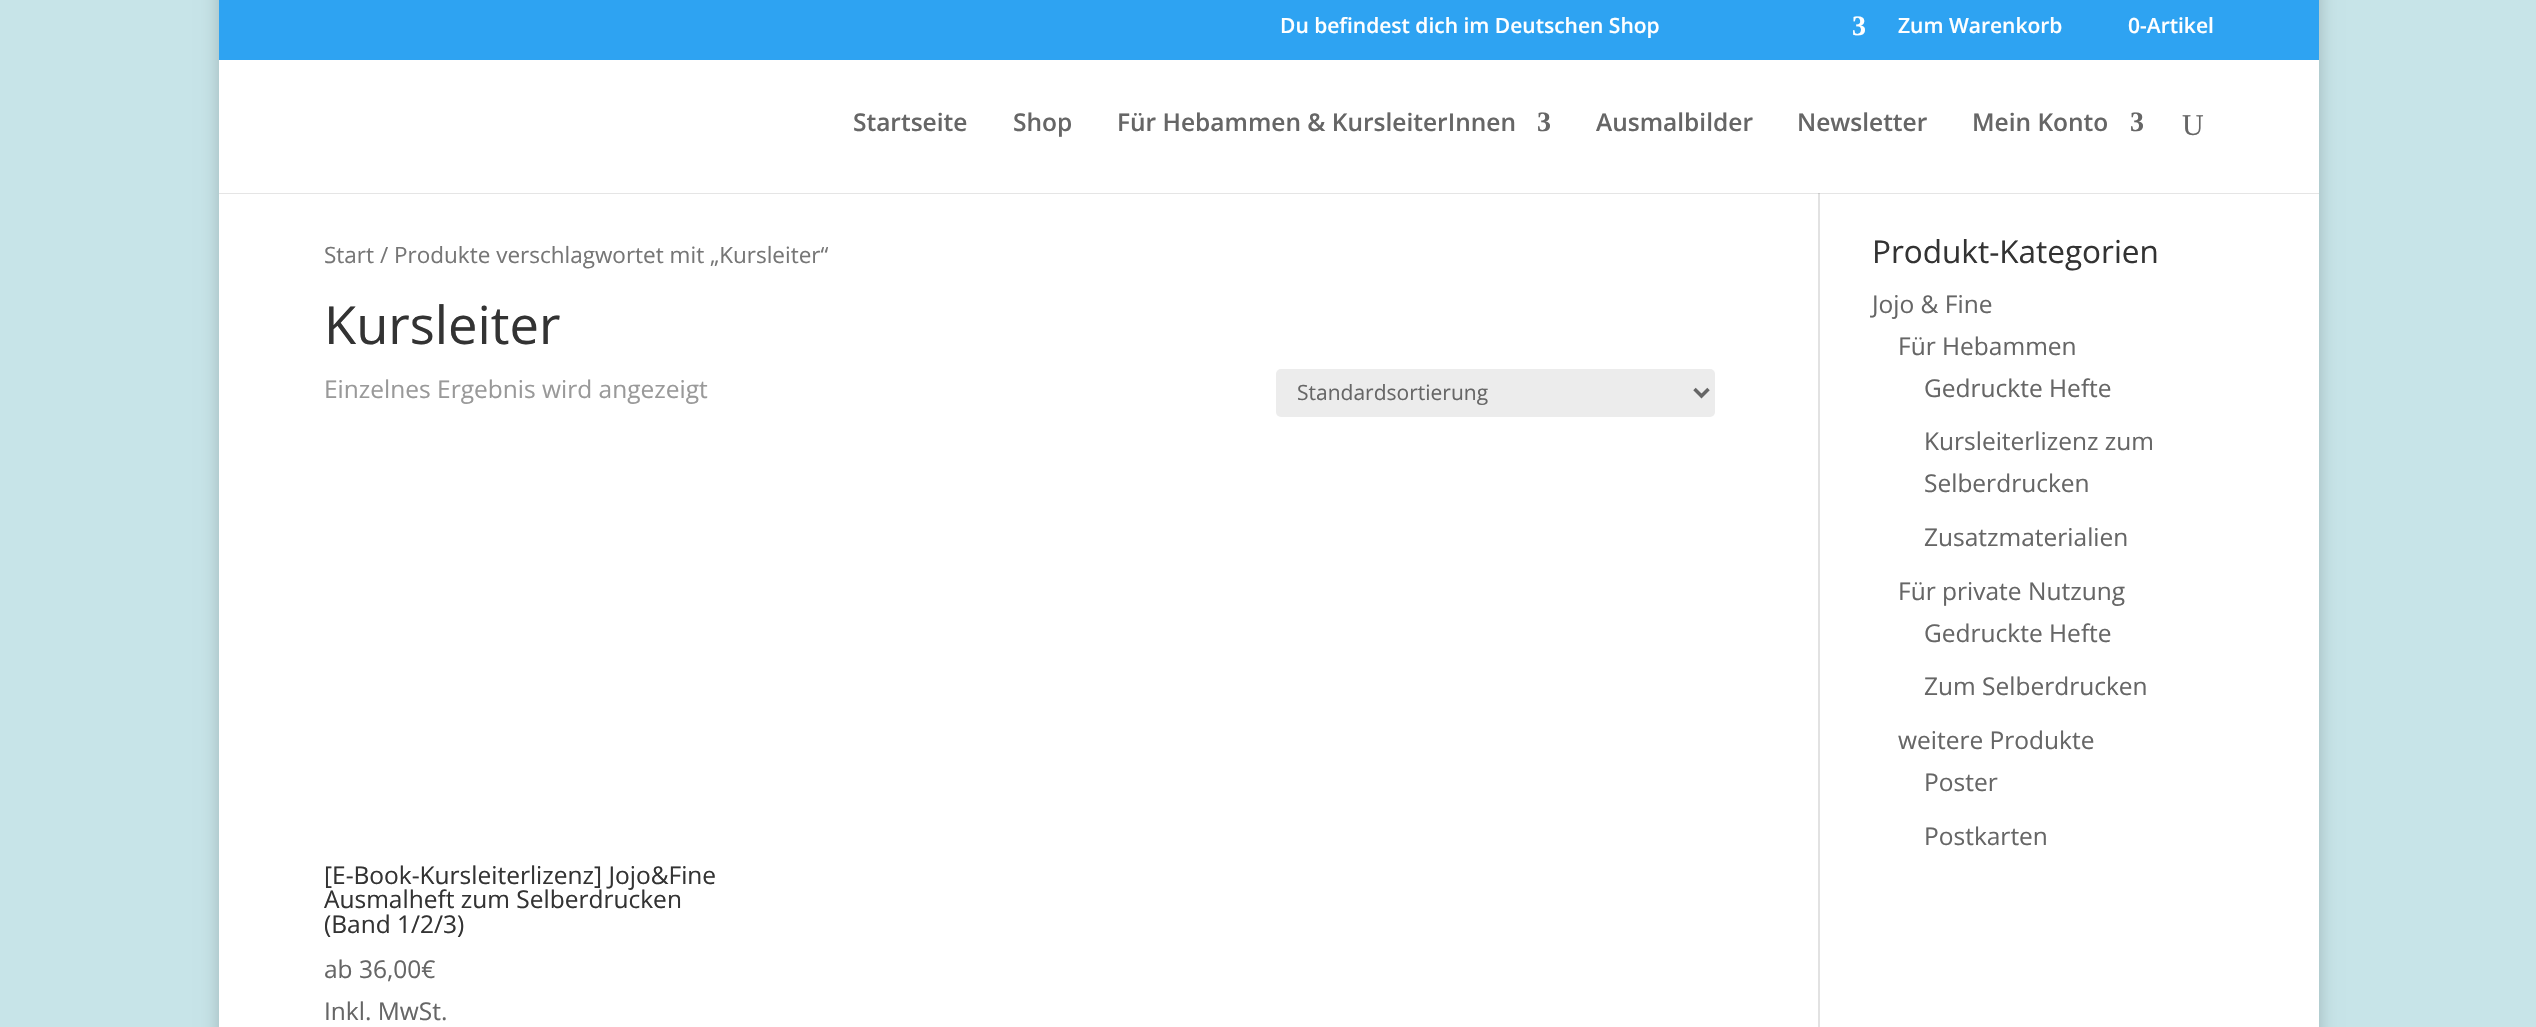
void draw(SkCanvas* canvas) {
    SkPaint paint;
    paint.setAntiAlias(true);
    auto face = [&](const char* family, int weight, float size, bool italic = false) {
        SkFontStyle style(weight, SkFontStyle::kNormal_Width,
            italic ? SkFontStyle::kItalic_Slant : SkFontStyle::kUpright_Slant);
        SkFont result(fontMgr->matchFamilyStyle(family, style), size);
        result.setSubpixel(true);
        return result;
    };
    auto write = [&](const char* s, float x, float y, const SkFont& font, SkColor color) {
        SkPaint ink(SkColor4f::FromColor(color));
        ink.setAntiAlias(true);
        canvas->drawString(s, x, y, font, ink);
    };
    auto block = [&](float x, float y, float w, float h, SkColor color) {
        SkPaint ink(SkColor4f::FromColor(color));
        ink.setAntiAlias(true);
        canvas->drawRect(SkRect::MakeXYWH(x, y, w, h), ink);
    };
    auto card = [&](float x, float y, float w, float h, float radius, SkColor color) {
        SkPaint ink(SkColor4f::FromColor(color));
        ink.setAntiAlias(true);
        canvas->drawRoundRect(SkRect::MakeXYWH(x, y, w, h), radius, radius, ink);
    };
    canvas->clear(SkColorSetRGB(199, 228, 232));
    paint.setColor(SkColorSetARGB(51, 0, 0, 0));
    paint.setMaskFilter(SkMaskFilter::MakeBlur(kNormal_SkBlurStyle, 9));
    canvas->drawRect(SkRect::MakeXYWH(219, -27, 2100, 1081), paint);
    paint.setMaskFilter(nullptr);
    block(219, 0, 2100, 60, SkColorSetRGB(46, 163, 242));
    auto kFont1 = face("Open Sans", 600, 21);
    write("Du befindest dich im Deutschen Shop", 1280, 33, kFont1, SK_ColorWHITE);
    auto kFont2 = face("Liberation Serif", 700, 28);
    write("3", 1852, 35, kFont2, SK_ColorWHITE);
    write("Zum Warenkorb", 1898, 33, kFont1, SK_ColorWHITE);
    write("0-Artikel", 2128, 33, kFont1, SK_ColorWHITE);
    block(219, 193, 2100, 834, SK_ColorWHITE);
    block(1818, 193, 2, 834, SkColorSetRGB(226, 226, 226));
    paint.setColor(SkColorSetARGB(26, 0, 0, 0));
    canvas->drawPath(SkPathBuilder().moveTo(219, 192).lineTo(219, 194).lineTo(2319, 194).lineTo(2319, 54).lineTo(2319, 192).close().detach(), paint);
    block(219, 60, 2100, 133, SK_ColorWHITE);
    auto kFont3 = face("Open Sans", 600, 24.5f);
    write("Startseite", 853, 131, kFont3, SkColorSetRGB(102, 102, 102));
    write("Shop", 1013, 131, kFont3, SkColorSetRGB(102, 102, 102));
    write("Für Hebammen & KursleiterInnen", 1117, 131, kFont3, SkColorSetRGB(102, 102, 102));
    write("3", 1537, 131, kFont2, SkColorSetRGB(102, 102, 102));
    write("Ausmalbilder", 1596, 131, kFont3, SkColorSetRGB(102, 102, 102));
    write("Newsletter", 1797, 131, kFont3, SkColorSetRGB(102, 102, 102));
    write("Mein Konto", 1972, 131, kFont3, SkColorSetRGB(102, 102, 102));
    write("3", 2130, 131, kFont2, SkColorSetRGB(102, 102, 102));
    auto kFont4 = face("Liberation Serif", 400, 30);
    write("U", 2182, 135, kFont4, SkColorSetRGB(102, 102, 102));
    auto kFont5 = face("Open Sans", 400, 22.5f);
    write("Start / Produkte verschlagwortet mit „Kursleiter“", 324, 263, kFont5, SkColorSetRGB(118, 118, 118));
    auto kFont6 = face("Open Sans", 400, 52.5f);
    write("Kursleiter", 324, 344, kFont6, SkColorSetRGB(51, 51, 51));
    auto kFont7 = face("Open Sans", 400, 24.5f);
    write("Einzelnes Ergebnis wird angezeigt", 324, 398, kFont7, SkColorSetRGB(153, 153, 153));
    card(1276, 369, 439, 48, 5, SkColorSetRGB(236, 236, 236));
    paint.setStyle(SkPaint::kStroke_Style);
    paint.setStrokeWidth(3.5f);
    paint.setColor(SkColorSetRGB(102, 102, 102));
    canvas->drawPath(SkPathBuilder().moveTo(1694.5f, 389).lineTo(1701.5f, 396).lineTo(1708.5f, 389).detach(), paint);
    auto kFont8 = face("Open Sans", 400, 21);
    write("Standardsortierung", 1297, 400, kFont8, SkColorSetRGB(102, 102, 102));
    write("[E-Book-Kursleiterlizenz] Jojo&Fine", 324, 884, kFont7, SkColorSetRGB(51, 51, 51));
    write("Ausmalheft zum Selberdrucken", 324, 908, kFont7, SkColorSetRGB(51, 51, 51));
    write("(Band 1/2/3)", 324, 933, kFont7, SkColorSetRGB(51, 51, 51));
    write("ab 36,00€", 324, 978, kFont7, SkColorSetRGB(102, 102, 102));
    write("Inkl. MwSt.", 324, 1020, kFont7, SkColorSetRGB(102, 102, 102));
    auto kFont9 = face("Open Sans", 400, 31.5f);
    write("Produkt-Kategorien", 1872, 263, kFont9, SkColorSetRGB(51, 51, 51));
    write("Jojo & Fine", 1872, 313, kFont7, SkColorSetRGB(102, 102, 102));
    write("Für Hebammen", 1898, 355, kFont7, SkColorSetRGB(102, 102, 102));
    write("Gedruckte Hefte", 1924, 397, kFont7, SkColorSetRGB(102, 102, 102));
    write("Kursleiterlizenz zum", 1924, 450, kFont7, SkColorSetRGB(102, 102, 102));
    write("Selberdrucken", 1924, 492, kFont7, SkColorSetRGB(102, 102, 102));
    write("Zusatzmaterialien", 1924, 546, kFont7, SkColorSetRGB(102, 102, 102));
    write("Für private Nutzung", 1898, 600, kFont7, SkColorSetRGB(102, 102, 102));
    write("Gedruckte Hefte", 1924, 642, kFont7, SkColorSetRGB(102, 102, 102));
    write("Zum Selberdrucken", 1924, 695, kFont7, SkColorSetRGB(102, 102, 102));
    write("weitere Produkte", 1898, 749, kFont7, SkColorSetRGB(102, 102, 102));
    write("Poster", 1924, 791, kFont7, SkColorSetRGB(102, 102, 102));
    write("Postkarten", 1924, 845, kFont7, SkColorSetRGB(102, 102, 102));
}
